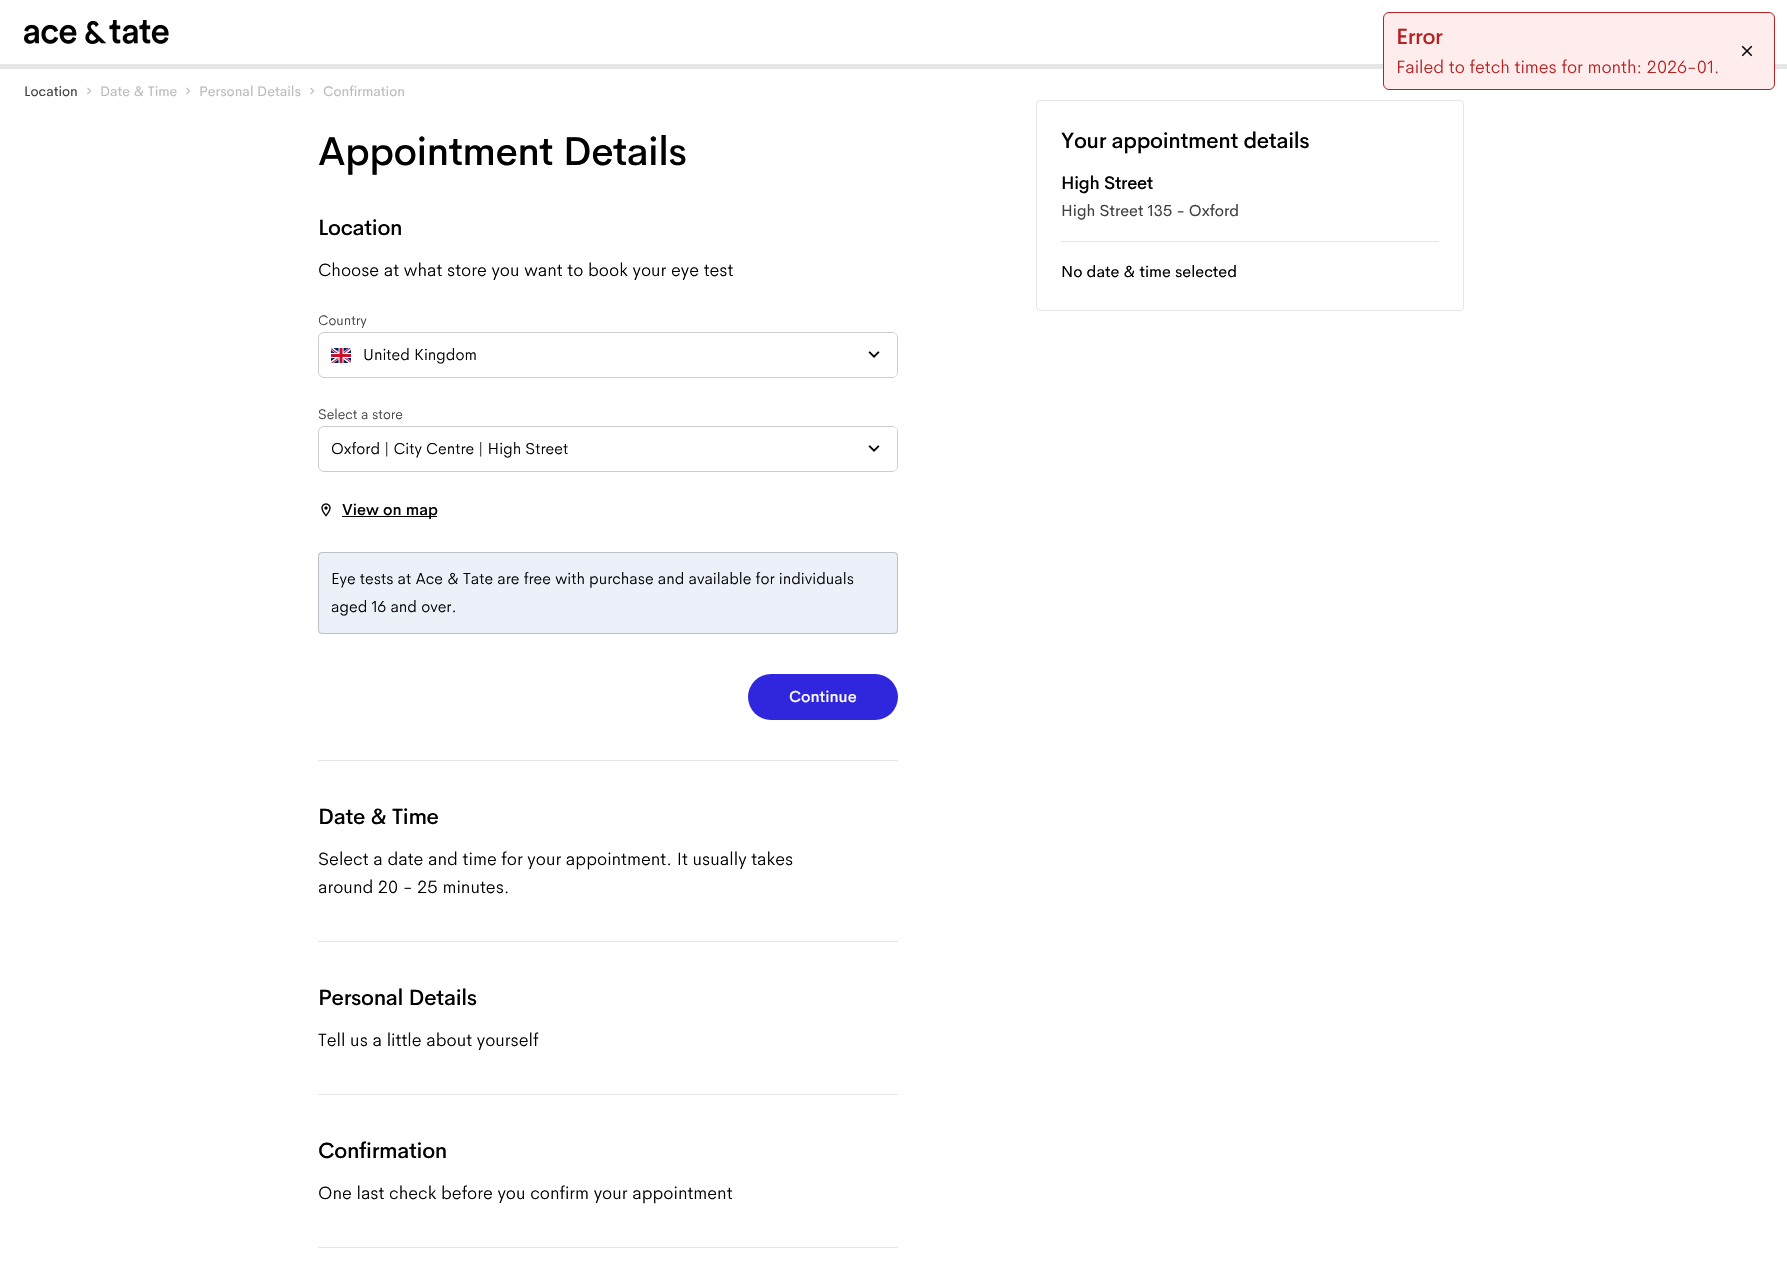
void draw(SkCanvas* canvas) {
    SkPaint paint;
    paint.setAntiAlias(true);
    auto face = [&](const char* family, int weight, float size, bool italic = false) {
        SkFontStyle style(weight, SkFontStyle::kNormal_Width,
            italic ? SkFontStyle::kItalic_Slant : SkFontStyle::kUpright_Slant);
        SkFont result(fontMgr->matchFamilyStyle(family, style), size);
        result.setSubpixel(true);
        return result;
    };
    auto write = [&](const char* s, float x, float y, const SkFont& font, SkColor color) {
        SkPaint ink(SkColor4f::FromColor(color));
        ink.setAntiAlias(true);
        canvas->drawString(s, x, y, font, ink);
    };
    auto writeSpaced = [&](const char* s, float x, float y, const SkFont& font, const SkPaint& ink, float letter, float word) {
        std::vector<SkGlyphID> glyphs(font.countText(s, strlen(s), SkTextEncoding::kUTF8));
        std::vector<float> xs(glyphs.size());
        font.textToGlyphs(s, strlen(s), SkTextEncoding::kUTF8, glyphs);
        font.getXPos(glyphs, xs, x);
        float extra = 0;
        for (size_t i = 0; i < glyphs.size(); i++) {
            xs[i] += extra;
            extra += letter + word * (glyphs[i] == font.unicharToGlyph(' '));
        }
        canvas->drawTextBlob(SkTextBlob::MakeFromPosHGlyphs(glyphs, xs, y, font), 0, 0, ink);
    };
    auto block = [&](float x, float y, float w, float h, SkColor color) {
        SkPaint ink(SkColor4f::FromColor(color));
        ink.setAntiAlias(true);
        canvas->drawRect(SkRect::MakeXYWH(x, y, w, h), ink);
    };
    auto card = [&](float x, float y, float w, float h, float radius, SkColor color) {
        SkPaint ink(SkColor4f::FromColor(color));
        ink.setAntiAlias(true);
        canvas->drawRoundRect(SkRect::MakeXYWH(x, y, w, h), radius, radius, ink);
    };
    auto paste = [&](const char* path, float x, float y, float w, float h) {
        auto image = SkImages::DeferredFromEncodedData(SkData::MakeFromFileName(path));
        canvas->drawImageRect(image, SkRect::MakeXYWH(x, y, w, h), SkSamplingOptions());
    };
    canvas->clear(SK_ColorWHITE);
    block(0, 64, 1787, 5, SkColorSetRGB(230, 230, 230));
    paint.setColor(SkColorSetRGB(255, 236, 236));
    canvas->drawRoundRect(SkRect::MakeXYWH(1383.5f, 12.5f, 391, 77), 5.5f, 5.5f, paint);
    paint.setStyle(SkPaint::kStroke_Style);
    paint.setStrokeWidth(1);
    paint.setColor(SkColorSetRGB(182, 33, 33));
    canvas->drawRoundRect(SkRect::MakeXYWH(1383.5f, 12.5f, 391, 77), 5.5f, 5.5f, paint);
    auto kFont1 = face("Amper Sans", 500, 22);
    paint.setStyle(SkPaint::kFill_Style);
    writeSpaced("Error", 1396, 44, kFont1, paint, -0.3f, 0);
    paste("pic1.png", 1741, 45, 12, 12);
    auto kFont2 = face("Amper Sans", 300, 18);
    write("Failed to fetch times for month: 2026-01.", 1396, 73, kFont2, SkColorSetRGB(182, 33, 33));
    paste("pic2.png", 24, 20, 145, 24);
    auto kFont3 = face("Amper Sans", 400, 14);
    write("Location", 24, 96, kFont3, SkColorSetRGB(64, 64, 64));
    paste("pic3.png", 87, 87, 5, 8);
    write("Date & Time", 100, 96, kFont3, SkColorSetRGB(187, 187, 187));
    paste("pic3.png", 186, 87, 5, 8);
    write("Personal Details", 199, 96, kFont3, SkColorSetRGB(187, 187, 187));
    paste("pic3.png", 310, 87, 5, 8);
    write("Confirmation", 323, 96, kFont3, SkColorSetRGB(187, 187, 187));
    auto kFont4 = face("Amper Sans", 500, 40);
    paint.setColor(SK_ColorBLACK);
    writeSpaced("Appointment Details", 318, 165, kFont4, paint, -0.6f, 0);
    block(318, 760, 580, 1, SkColorSetRGB(230, 230, 230));
    writeSpaced("Location", 318, 235, kFont1, paint, -0.3f, 0);
    write("Choose at what store you want to book your eye test", 318, 276, kFont2, SK_ColorBLACK);
    auto kFont5 = face("Amper Sans", 300, 14);
    write("Country", 318, 325, kFont5, SkColorSetRGB(64, 64, 64));
    paint.setStyle(SkPaint::kStroke_Style);
    paint.setColor(SkColorSetRGB(204, 204, 204));
    canvas->drawRoundRect(SkRect::MakeXYWH(318.5f, 332.5f, 579, 45), 5.5f, 5.5f, paint);
    paste("pic4.png", 331, 348, 20, 15);
    auto kFont6 = face("Amper Sans", 300, 16);
    write("United Kingdom", 363, 360, kFont6, SK_ColorBLACK);
    paint.setStyle(SkPaint::kFill_Style);
    {
        const SkColor colors[] = {SkColorSetARGB(0, 255, 255, 255), SK_ColorWHITE};
        const float stops[] = {0, 0.26f};
        const SkPoint ends[] = {{851, 355}, {897, 355}};
        paint.setShader(SkGradientShader::MakeLinear(ends, colors, stops, 2, SkTileMode::kClamp));
        paint.setAlpha(255);
    }
    canvas->drawPath(SkPathBuilder().moveTo(851, 333).lineTo(892, 333).cubicTo(895, 333, 897, 335, 897, 338).lineTo(897, 372).cubicTo(897, 375, 895, 377, 892, 377).lineTo(851, 377).close().detach(), paint);
    paste("pic5.png", 868, 351, 12, 7);
    write("Select a store", 318, 419, kFont5, SkColorSetRGB(64, 64, 64));
    paint.setStyle(SkPaint::kStroke_Style);
    paint.setShader(nullptr);
    paint.setColor(SkColorSetRGB(204, 204, 204));
    canvas->drawRoundRect(SkRect::MakeXYWH(318.5f, 426.5f, 579, 45), 5.5f, 5.5f, paint);
    write("Oxford | City Centre | High Street", 331, 454, kFont6, SK_ColorBLACK);
    paint.setStyle(SkPaint::kFill_Style);
    {
        const SkColor colors[] = {SkColorSetARGB(0, 255, 255, 255), SK_ColorWHITE};
        const float stops[] = {0, 0.26f};
        const SkPoint ends[] = {{851, 449}, {897, 449}};
        paint.setShader(SkGradientShader::MakeLinear(ends, colors, stops, 2, SkTileMode::kClamp));
        paint.setAlpha(255);
    }
    canvas->drawPath(SkPathBuilder().moveTo(851, 427).lineTo(892, 427).cubicTo(895, 427, 897, 429, 897, 432).lineTo(897, 466).cubicTo(897, 469, 895, 471, 892, 471).lineTo(851, 471).close().detach(), paint);
    paste("pic5.png", 868, 445, 12, 7);
    paste("pic6.png", 321, 503, 10, 14);
    block(342, 516, 95, 1, SK_ColorBLACK);
    auto kFont7 = face("Amper Sans", 500, 16);
    write("View on map", 342, 515, kFont7, SK_ColorBLACK);
    card(318, 552, 580, 82, 4, SkColorSetRGB(235, 240, 249));
    paint.setStyle(SkPaint::kStroke_Style);
    paint.setShader(nullptr);
    paint.setColor(SkColorSetARGB(51, 0, 0, 0));
    canvas->drawRoundRect(SkRect::MakeXYWH(318.5f, 552.5f, 579, 81), 3.5f, 3.5f, paint);
    write("Eye tests at Ace & Tate are free with purchase and available for individuals", 331, 584, kFont6, SK_ColorBLACK);
    write("aged 16 and over.", 331, 612, kFont6, SK_ColorBLACK);
    card(748, 674, 150, 46, 23, SkColorSetRGB(47, 38, 221));
    write("Continue", 789, 702, kFont7, SK_ColorWHITE);
    block(318, 941, 580, 1, SkColorSetRGB(230, 230, 230));
    paint.setStyle(SkPaint::kFill_Style);
    paint.setColor(SK_ColorBLACK);
    writeSpaced("Date & Time", 318, 824, kFont1, paint, -0.3f, 0);
    write("Select a date and time for your appointment. It usually takes", 318, 865, kFont2, SK_ColorBLACK);
    write("around 20 - 25 minutes.", 318, 893, kFont2, SK_ColorBLACK);
    block(318, 1094, 580, 1, SkColorSetRGB(230, 230, 230));
    writeSpaced("Personal Details", 318, 1005, kFont1, paint, -0.3f, 0);
    write("Tell us a little about yourself", 318, 1046, kFont2, SK_ColorBLACK);
    block(318, 1247, 580, 1, SkColorSetRGB(230, 230, 230));
    writeSpaced("Confirmation", 318, 1158, kFont1, paint, -0.3f, 0);
    write("One last check before you confirm your appointment", 318, 1199, kFont2, SK_ColorBLACK);
    paint.setStyle(SkPaint::kStroke_Style);
    paint.setColor(SkColorSetRGB(230, 230, 230));
    canvas->drawRoundRect(SkRect::MakeXYWH(1036.5f, 100.5f, 427, 210), 3.5f, 3.5f, paint);
    paint.setStyle(SkPaint::kFill_Style);
    paint.setColor(SK_ColorBLACK);
    writeSpaced("Your appointment details", 1061, 148, kFont1, paint, -0.3f, 0);
    auto kFont8 = face("Amper Sans", 500, 18);
    writeSpaced("High Street", 1061, 189, kFont8, paint, -0.25f, 0);
    auto kFont9 = face("Amper Sans", 400, 16);
    write("High Street 135 - Oxford", 1061, 216, kFont9, SkColorSetRGB(64, 64, 64));
    block(1061, 241, 378, 1, SkColorSetRGB(230, 230, 230));
    write("No date & time selected", 1061, 277, kFont9, SK_ColorBLACK);
}
